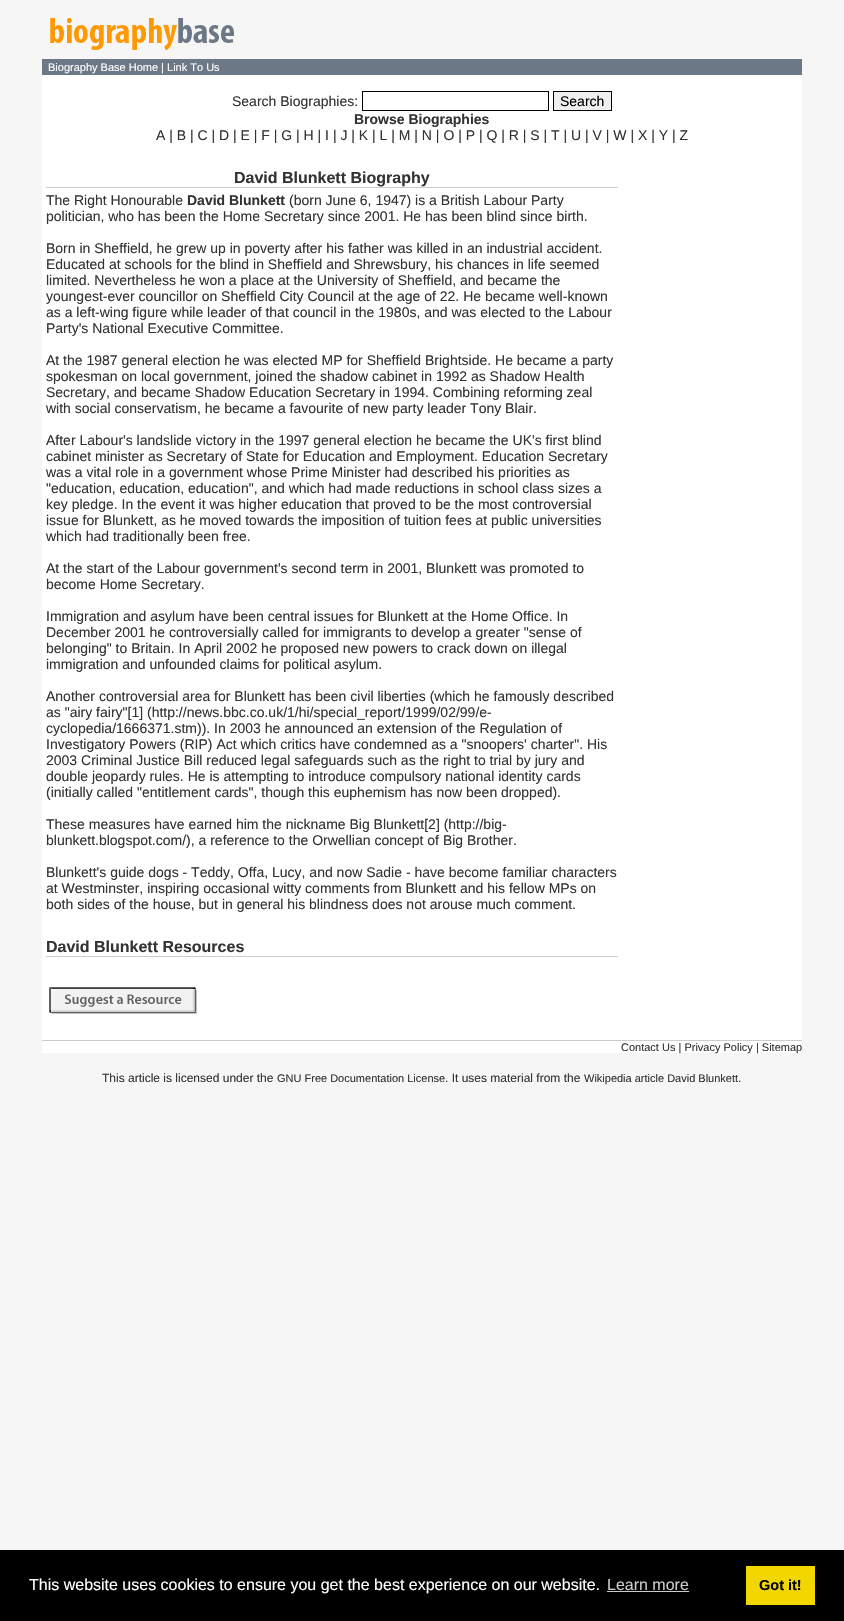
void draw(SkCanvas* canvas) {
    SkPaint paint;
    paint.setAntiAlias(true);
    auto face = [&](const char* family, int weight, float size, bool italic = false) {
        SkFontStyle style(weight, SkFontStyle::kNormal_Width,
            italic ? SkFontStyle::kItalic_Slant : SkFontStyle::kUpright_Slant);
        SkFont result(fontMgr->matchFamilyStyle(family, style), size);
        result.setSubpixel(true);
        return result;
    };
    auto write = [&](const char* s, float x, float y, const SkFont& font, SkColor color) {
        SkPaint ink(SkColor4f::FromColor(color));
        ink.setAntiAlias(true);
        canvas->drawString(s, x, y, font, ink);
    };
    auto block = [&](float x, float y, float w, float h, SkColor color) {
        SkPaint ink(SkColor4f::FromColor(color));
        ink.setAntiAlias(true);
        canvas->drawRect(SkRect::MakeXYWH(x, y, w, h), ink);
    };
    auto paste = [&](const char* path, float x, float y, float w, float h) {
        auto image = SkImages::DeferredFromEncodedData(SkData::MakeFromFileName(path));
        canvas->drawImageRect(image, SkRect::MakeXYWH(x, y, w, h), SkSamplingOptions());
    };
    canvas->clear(SkColorSetRGB(246, 246, 246));
    paste("pic1.png", 50, 18, 184, 33);
    block(42, 59, 760, 16, SkColorSetRGB(108, 120, 134));
    auto kFont1 = face("Liberation Sans", 400, 11);
    write("Biography Base Home | Link To Us", 48, 71, kFont1, SK_ColorWHITE);
    block(42, 75, 760, 978, SK_ColorWHITE);
    auto kFont2 = face("Liberation Sans", 400, 14);
    write("Search Biographies:", 232, 106, kFont2, SkColorSetRGB(51, 51, 51));
    paint.setStyle(SkPaint::kStroke_Style);
    paint.setStrokeWidth(1);
    paint.setColor(SK_ColorBLACK);
    canvas->drawRect(SkRect::MakeXYWH(362.5f, 91.5f, 186, 19), paint);
    paint.setStyle(SkPaint::kFill_Style);
    paint.setColor(SkColorSetRGB(239, 239, 239));
    canvas->drawRect(SkRect::MakeXYWH(553.5f, 91.5f, 58, 19), paint);
    paint.setStyle(SkPaint::kStroke_Style);
    paint.setColor(SK_ColorBLACK);
    canvas->drawRect(SkRect::MakeXYWH(553.5f, 91.5f, 58, 19), paint);
    write("Search", 560, 106, kFont2, SK_ColorBLACK);
    auto kFont3 = face("Liberation Sans", 700, 14);
    write("Browse Biographies", 354, 124, kFont3, SkColorSetRGB(51, 51, 51));
    write("A | B | C | D | E | F | G | H | I | J | K | L | M | N | O | P | Q | R | S | T | U | V | W | X | Y | Z", 156, 140, kFont2, SkColorSetRGB(51, 51, 51));
    block(46, 187, 572, 1, SkColorSetRGB(204, 204, 204));
    auto kFont4 = face("Liberation Sans", 700, 16);
    write("David Blunkett Biography", 234, 183, kFont4, SkColorSetRGB(51, 51, 51));
    write("The Right Honourable", 46, 205, kFont2, SkColorSetRGB(51, 51, 51));
    write("David Blunkett", 187, 205, kFont3, SkColorSetRGB(51, 51, 51));
    write("(born June 6, 1947) is a British Labour Party", 289, 205, kFont2, SkColorSetRGB(51, 51, 51));
    write("politician, who has been the Home Secretary since 2001. He has been blind since birth.", 46, 221, kFont2, SkColorSetRGB(51, 51, 51));
    write("Born in Sheffield, he grew up in poverty after his father was killed in an industrial accident.", 46, 253, kFont2, SkColorSetRGB(51, 51, 51));
    write("Educated at schools for the blind in Sheffield and Shrewsbury, his chances in life seemed", 46, 269, kFont2, SkColorSetRGB(51, 51, 51));
    write("limited. Nevertheless he won a place at the University of Sheffield, and became the", 46, 285, kFont2, SkColorSetRGB(51, 51, 51));
    write("youngest-ever councillor on Sheffield City Council at the age of 22. He became well-known", 46, 301, kFont2, SkColorSetRGB(51, 51, 51));
    write("as a left-wing figure while leader of that council in the 1980s, and was elected to the Labour", 46, 317, kFont2, SkColorSetRGB(51, 51, 51));
    write("Party's National Executive Committee.", 46, 333, kFont2, SkColorSetRGB(51, 51, 51));
    write("At the 1987 general election he was elected MP for Sheffield Brightside. He became a party", 46, 365, kFont2, SkColorSetRGB(51, 51, 51));
    write("spokesman on local government, joined the shadow cabinet in 1992 as Shadow Health", 46, 381, kFont2, SkColorSetRGB(51, 51, 51));
    write("Secretary, and became Shadow Education Secretary in 1994. Combining reforming zeal", 46, 397, kFont2, SkColorSetRGB(51, 51, 51));
    write("with social conservatism, he became a favourite of new party leader Tony Blair.", 46, 413, kFont2, SkColorSetRGB(51, 51, 51));
    write("After Labour's landslide victory in the 1997 general election he became the UK's first blind", 46, 445, kFont2, SkColorSetRGB(51, 51, 51));
    write("cabinet minister as Secretary of State for Education and Employment. Education Secretary", 46, 461, kFont2, SkColorSetRGB(51, 51, 51));
    write("was a vital role in a government whose Prime Minister had described his priorities as", 46, 477, kFont2, SkColorSetRGB(51, 51, 51));
    write("\"education, education, education\", and which had made reductions in school class sizes a", 46, 493, kFont2, SkColorSetRGB(51, 51, 51));
    write("key pledge. In the event it was higher education that proved to be the most controversial", 46, 509, kFont2, SkColorSetRGB(51, 51, 51));
    write("issue for Blunkett, as he moved towards the imposition of tuition fees at public universities", 46, 525, kFont2, SkColorSetRGB(51, 51, 51));
    write("which had traditionally been free.", 46, 541, kFont2, SkColorSetRGB(51, 51, 51));
    write("At the start of the Labour government's second term in 2001, Blunkett was promoted to", 46, 573, kFont2, SkColorSetRGB(51, 51, 51));
    write("become Home Secretary.", 46, 589, kFont2, SkColorSetRGB(51, 51, 51));
    write("Immigration and asylum have been central issues for Blunkett at the Home Office. In", 46, 621, kFont2, SkColorSetRGB(51, 51, 51));
    write("December 2001 he controversially called for immigrants to develop a greater \"sense of", 46, 637, kFont2, SkColorSetRGB(51, 51, 51));
    write("belonging\" to Britain. In April 2002 he proposed new powers to crack down on illegal", 46, 653, kFont2, SkColorSetRGB(51, 51, 51));
    write("immigration and unfounded claims for political asylum.", 46, 669, kFont2, SkColorSetRGB(51, 51, 51));
    write("Another controversial area for Blunkett has been civil liberties (which he famously described", 46, 701, kFont2, SkColorSetRGB(51, 51, 51));
    write("as \"airy fairy\"[1] (http://news.bbc.co.uk/1/hi/special_report/1999/02/99/e-", 46, 717, kFont2, SkColorSetRGB(51, 51, 51));
    write("cyclopedia/1666371.stm)). In 2003 he announced an extension of the Regulation of", 46, 733, kFont2, SkColorSetRGB(51, 51, 51));
    write("Investigatory Powers (RIP) Act which critics have condemned as a \"snoopers' charter\". His", 46, 749, kFont2, SkColorSetRGB(51, 51, 51));
    write("2003 Criminal Justice Bill reduced legal safeguards such as the right to trial by jury and", 46, 765, kFont2, SkColorSetRGB(51, 51, 51));
    write("double jeopardy rules. He is attempting to introduce compulsory national identity cards", 46, 781, kFont2, SkColorSetRGB(51, 51, 51));
    write("(initially called \"entitlement cards\", though this euphemism has now been dropped).", 46, 797, kFont2, SkColorSetRGB(51, 51, 51));
    write("These measures have earned him the nickname Big Blunkett[2] (http://big-", 46, 829, kFont2, SkColorSetRGB(51, 51, 51));
    write("blunkett.blogspot.com/), a reference to the Orwellian concept of Big Brother.", 46, 845, kFont2, SkColorSetRGB(51, 51, 51));
    write("Blunkett's guide dogs - Teddy, Offa, Lucy, and now Sadie - have become familiar characters", 46, 877, kFont2, SkColorSetRGB(51, 51, 51));
    write("at Westminster, inspiring occasional witty comments from Blunkett and his fellow MPs on", 46, 893, kFont2, SkColorSetRGB(51, 51, 51));
    write("both sides of the house, but in general his blindness does not arouse much comment.", 46, 909, kFont2, SkColorSetRGB(51, 51, 51));
    block(46, 956, 572, 1, SkColorSetRGB(204, 204, 204));
    write("David Blunkett Resources", 46, 952, kFont4, SkColorSetRGB(51, 51, 51));
    paste("pic2.png", 49, 987, 148, 27);
    block(42, 1040, 760, 1, SkColorSetRGB(204, 204, 204));
    write("Contact Us | Privacy Policy | Sitemap", 621, 1051, kFont1, SkColorSetRGB(51, 51, 51));
    auto kFont5 = face("Liberation Sans", 400, 12);
    write("This article is licensed under the", 102, 1082, kFont5, SkColorSetRGB(51, 51, 51));
    write("GNU Free Documentation License", 277, 1082, kFont1, SkColorSetRGB(51, 51, 51));
    write(". It uses material from the", 445, 1082, kFont5, SkColorSetRGB(51, 51, 51));
    write("Wikipedia article David Blunkett", 584, 1082, kFont1, SkColorSetRGB(51, 51, 51));
    write(".", 738, 1082, kFont5, SkColorSetRGB(51, 51, 51));
    block(0, 1550, 844, 71, SK_ColorBLACK);
    auto kFont6 = face("Liberation Sans", 400, 16);
    write("This website uses cookies to ensure you get the best experience on our website.", 29, 1590, kFont6, SK_ColorWHITE);
    write("Learn more", 607, 1590, kFont6, SkColorSetRGB(204, 204, 204));
    block(607, 1591, 82, 1, SkColorSetRGB(204, 204, 204));
    block(746, 1566, 69, 39, SkColorSetRGB(241, 214, 0));
    auto kFont7 = face("Liberation Sans", 700, 14.5f);
    write("Got it!", 759, 1590, kFont7, SK_ColorBLACK);
}
